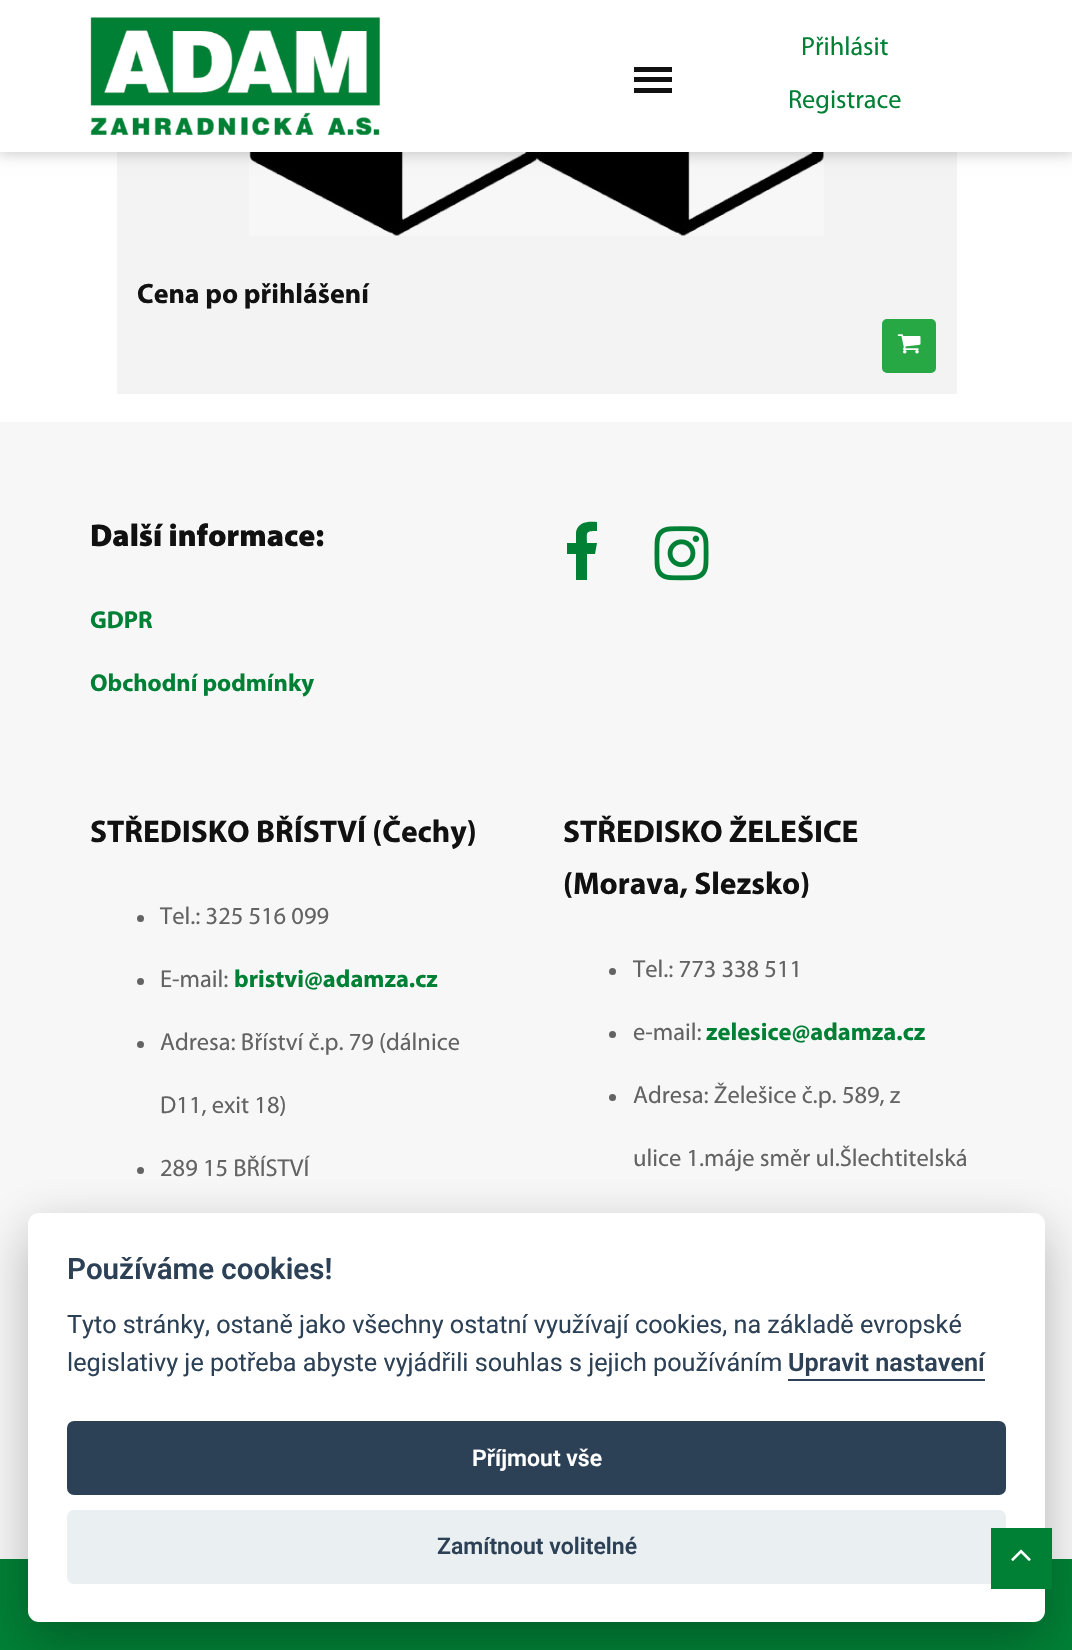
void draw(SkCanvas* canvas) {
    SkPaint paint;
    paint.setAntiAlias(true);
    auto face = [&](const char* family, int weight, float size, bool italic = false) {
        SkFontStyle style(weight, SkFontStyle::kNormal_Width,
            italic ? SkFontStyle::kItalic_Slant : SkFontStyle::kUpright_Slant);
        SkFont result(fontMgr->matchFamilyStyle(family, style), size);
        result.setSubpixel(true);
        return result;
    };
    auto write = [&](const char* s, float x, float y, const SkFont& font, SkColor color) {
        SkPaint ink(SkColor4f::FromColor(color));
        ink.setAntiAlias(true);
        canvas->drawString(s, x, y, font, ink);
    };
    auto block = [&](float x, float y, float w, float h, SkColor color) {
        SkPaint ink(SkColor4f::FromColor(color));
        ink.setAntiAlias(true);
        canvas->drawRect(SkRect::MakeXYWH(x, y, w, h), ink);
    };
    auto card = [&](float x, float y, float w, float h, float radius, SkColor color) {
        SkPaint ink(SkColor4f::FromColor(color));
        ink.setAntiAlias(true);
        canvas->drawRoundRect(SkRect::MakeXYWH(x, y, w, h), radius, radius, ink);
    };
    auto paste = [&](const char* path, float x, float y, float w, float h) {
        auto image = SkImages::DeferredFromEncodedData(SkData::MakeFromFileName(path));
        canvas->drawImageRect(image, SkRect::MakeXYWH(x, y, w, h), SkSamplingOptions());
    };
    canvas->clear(SK_ColorWHITE);
    block(117, 152, 840, 242, SkColorSetRGB(243, 243, 243));
    paste("pic2.png", 249, 152, 575, 84);
    paint.setColor(SkColorSetARGB(51, 0, 0, 0));
    paint.setMaskFilter(SkMaskFilter::MakeBlur(kNormal_SkBlurStyle, 7));
    canvas->drawRect(SkRect::MakeXYWH(-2, -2, 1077, 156), paint);
    paint.setMaskFilter(nullptr);
    block(0, 0, 1072, 152, SK_ColorWHITE);
    paste("pic1.png", 90, 17, 290, 118);
    block(634, 67, 38, 5, SkColorSetRGB(17, 17, 17));
    block(634, 77, 38, 5, SkColorSetRGB(17, 17, 17));
    block(634, 88, 38, 5, SkColorSetRGB(17, 17, 17));
    auto kFont1 = face("Myriad", 400, 26.25f);
    write("Přihlásit", 801, 55, kFont1, SkColorSetRGB(0, 128, 53));
    write("Registrace", 788, 108, kFont1, SkColorSetRGB(0, 128, 53));
    auto kFont2 = face("Myriad", 700, 28);
    write("Cena po přihlášení", 137, 303, kFont2, SkColorSetRGB(17, 17, 17));
    paint.setColor(SkColorSetRGB(40, 167, 69));
    canvas->drawRoundRect(SkRect::MakeXYWH(883, 320, 52, 52), 4, 4, paint);
    paint.setStyle(SkPaint::kStroke_Style);
    paint.setStrokeWidth(2);
    canvas->drawRoundRect(SkRect::MakeXYWH(883, 320, 52, 52), 4, 4, paint);
    paste("pic3.png", 897, 334, 24, 20);
    block(0, 422, 1072, 1137, SkColorSetRGB(247, 247, 247));
    auto kFont3 = face("Myriad", 900, 31.5f);
    write("Další informace:", 90, 546, kFont3, SkColorSetRGB(17, 17, 17));
    auto kFont4 = face("Myriad", 700, 24.5f);
    write("GDPR", 90, 628, kFont4, SkColorSetRGB(0, 128, 53));
    write("Obchodní podmínky", 90, 691, kFont4, SkColorSetRGB(0, 128, 53));
    paint.setStyle(SkPaint::kFill_Style);
    paint.setColor(SkColorSetRGB(0, 128, 53));
    canvas->drawPath(SkPathBuilder().moveTo(597, 522).lineTo(597, 531).cubicTo(585, 531, 587, 532, 587, 543).lineTo(597, 543).lineTo(595, 554).lineTo(587, 554).lineTo(587, 580).lineTo(576, 580).lineTo(576, 554).lineTo(567, 554).lineTo(567, 543).lineTo(576, 543).lineTo(576, 532).cubicTo(578, 522, 588, 521, 597, 522).close().detach(), paint);
    paste("pic4.png", 654, 526, 55, 55);
    auto kFont5 = face("Myriad", 700, 31.5f);
    write("STŘEDISKO BŘÍSTVÍ (Čechy)", 90, 842, kFont5, SkColorSetRGB(17, 17, 17));
    paint.setColor(SkColorSetRGB(99, 99, 99));
    canvas->drawCircle(140.5f, 918.5f, 3.5f, paint);
    auto kFont6 = face("Myriad", 400, 24.5f);
    write("Tel.: 325 516 099", 160, 924, kFont6, SkColorSetRGB(99, 99, 99));
    canvas->drawCircle(140.5f, 981.5f, 3.5f, paint);
    write("E-mail:", 160, 987, kFont6, SkColorSetRGB(99, 99, 99));
    write("bristvi@adamza.cz", 234, 987, kFont4, SkColorSetRGB(0, 128, 53));
    canvas->drawCircle(140.5f, 1044.5f, 3.5f, paint);
    write("Adresa: Bříství č.p. 79 (dálnice", 160, 1050, kFont6, SkColorSetRGB(99, 99, 99));
    write("D11, exit 18)", 160, 1113, kFont6, SkColorSetRGB(99, 99, 99));
    canvas->drawCircle(140.5f, 1170.5f, 3.5f, paint);
    write("289 15 BŘÍSTVÍ", 160, 1176, kFont6, SkColorSetRGB(99, 99, 99));
    write("STŘEDISKO ŽELEŠICE", 563, 842, kFont5, SkColorSetRGB(17, 17, 17));
    write("(Morava, Slezsko)", 563, 894, kFont5, SkColorSetRGB(17, 17, 17));
    canvas->drawCircle(612.5f, 971.5f, 3.5f, paint);
    write("Tel.: 773 338 511", 633, 977, kFont6, SkColorSetRGB(99, 99, 99));
    canvas->drawCircle(612.5f, 1034.5f, 3.5f, paint);
    write("e-mail:", 633, 1040, kFont6, SkColorSetRGB(99, 99, 99));
    write("zelesice@adamza.cz", 706, 1040, kFont4, SkColorSetRGB(0, 128, 53));
    canvas->drawCircle(612.5f, 1097.5f, 3.5f, paint);
    write("Adresa: Želešice č.p. 589, z", 633, 1103, kFont6, SkColorSetRGB(99, 99, 99));
    write("ulice 1.máje směr ul.Šlechtitelská", 633, 1166, kFont6, SkColorSetRGB(99, 99, 99));
    block(0, 1559, 1072, 91, SkColorSetRGB(0, 128, 53));
    paint.setColor(SkColorSetARGB(71, 2, 2, 3));
    paint.setMaskFilter(SkMaskFilter::MakeBlur(kNormal_SkBlurStyle, 26));
    canvas->drawRoundRect(SkRect::MakeXYWH(28, 1230, 1017, 410), 11, 11, paint);
    paint.setMaskFilter(nullptr);
    card(28, 1213, 1017, 409, 11, SK_ColorWHITE);
    auto kFont7 = face("Roboto", 600, 29.5f);
    write("Používáme cookies!", 67, 1279, kFont7, SkColorSetRGB(45, 65, 86));
    auto kFont8 = face("Roboto", 400, 25.2f);
    write("Tyto stránky, ostaně jako všechny ostatní využívají cookies, na základě evropské", 67, 1333, kFont8, SkColorSetRGB(45, 65, 86));
    write("legislativy je potřeba abyste vyjádřili souhlas s jejich používáním", 67, 1371, kFont8, SkColorSetRGB(45, 65, 86));
    auto kFont9 = face("Roboto", 600, 25.2f);
    write("Upravit nastavení", 788, 1371, kFont9, SkColorSetRGB(45, 65, 86));
    block(788, 1379, 197, 2, SkColorSetRGB(45, 65, 86));
    card(67, 1421, 939, 74, 7, SkColorSetRGB(45, 65, 86));
    auto kFont10 = face("Roboto", 600, 23);
    write("Příjmout vše", 472, 1466, kFont10, SK_ColorWHITE);
    card(67, 1510, 939, 74, 7, SkColorSetRGB(234, 239, 242));
    write("Zamítnout volitelné", 437, 1554, kFont10, SkColorSetRGB(45, 65, 86));
    block(991, 1528, 61, 61, SkColorSetRGB(0, 128, 53));
    paste("pic5.png", 1011, 1549, 20, 12);
}
